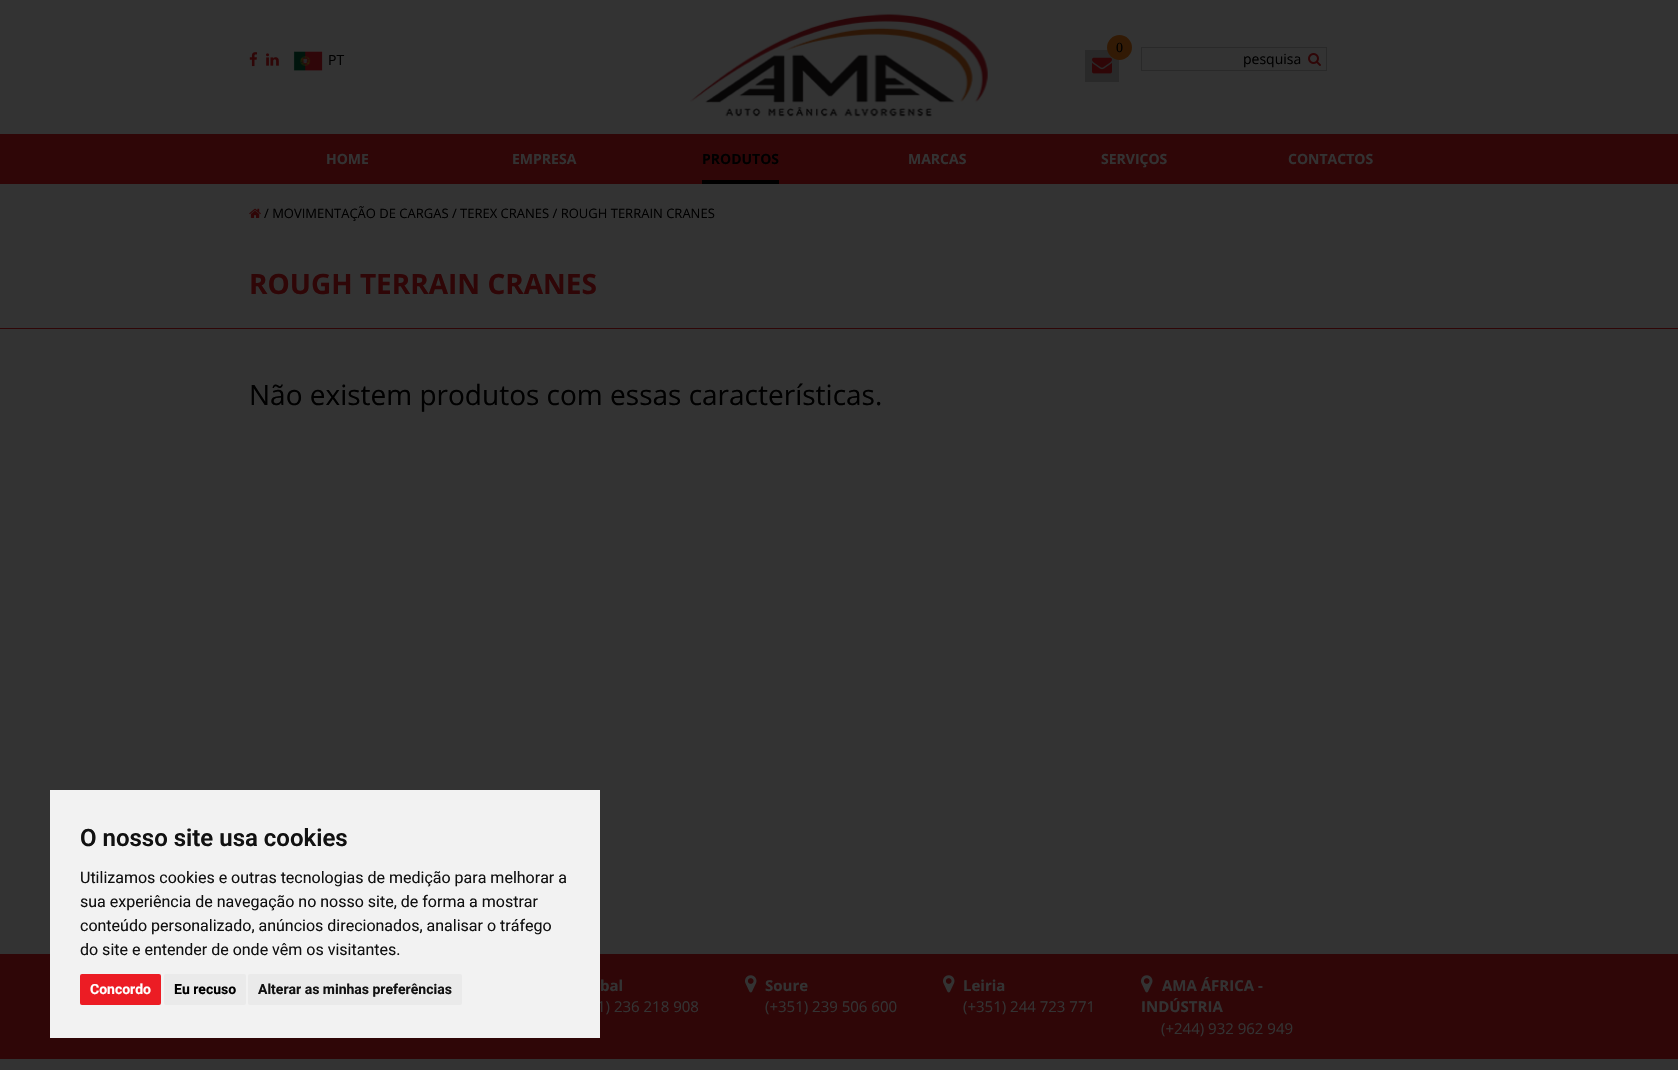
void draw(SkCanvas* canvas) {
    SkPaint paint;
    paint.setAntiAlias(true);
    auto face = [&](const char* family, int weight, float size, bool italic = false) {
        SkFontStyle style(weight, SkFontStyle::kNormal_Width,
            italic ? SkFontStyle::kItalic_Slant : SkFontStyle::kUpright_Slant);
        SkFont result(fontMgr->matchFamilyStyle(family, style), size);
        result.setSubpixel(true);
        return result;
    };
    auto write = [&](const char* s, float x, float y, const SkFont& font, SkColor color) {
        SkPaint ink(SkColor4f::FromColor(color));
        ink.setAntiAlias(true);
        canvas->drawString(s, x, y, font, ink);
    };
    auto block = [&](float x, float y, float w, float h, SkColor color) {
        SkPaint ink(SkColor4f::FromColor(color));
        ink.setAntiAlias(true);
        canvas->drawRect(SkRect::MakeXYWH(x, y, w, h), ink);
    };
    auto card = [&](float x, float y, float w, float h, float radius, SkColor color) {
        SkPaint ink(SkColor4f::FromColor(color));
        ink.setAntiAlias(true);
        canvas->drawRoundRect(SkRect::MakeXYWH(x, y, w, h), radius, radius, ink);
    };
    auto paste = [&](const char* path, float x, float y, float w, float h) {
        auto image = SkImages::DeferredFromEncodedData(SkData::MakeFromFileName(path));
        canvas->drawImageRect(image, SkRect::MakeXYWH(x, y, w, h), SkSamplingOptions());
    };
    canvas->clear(SkColorSetRGB(51, 51, 51));
    block(0, 134, 1678, 50, SkColorSetRGB(47, 6, 7));
    paste("pic1.png", 249, 52, 9, 15);
    paste("pic2.png", 266, 53, 13, 13);
    paste("pic3.png", 293, 51, 30, 20);
    auto kFont1 = face("Open Sans", 400, 14);
    write("PT", 328, 65, kFont1, SK_ColorBLACK);
    paste("pic4.png", 690, 13, 298, 104);
    block(1085, 50, 34, 32, SkColorSetRGB(41, 41, 41));
    paste("pic5.png", 1092, 57, 20, 17);
    paint.setColor(SkColorSetRGB(50, 26, 5));
    canvas->drawCircle(1119.5f, 47.5f, 12.5f, paint);
    auto kFont2 = face("Liberation Serif", 400, 14);
    write("0", 1116, 52, kFont2, SK_ColorBLACK);
    paint.setStyle(SkPaint::kStroke_Style);
    paint.setStrokeWidth(1);
    paint.setColor(SkColorSetRGB(41, 41, 41));
    canvas->drawRect(SkRect::MakeXYWH(1141.5f, 47.5f, 185, 23), paint);
    write("pesquisa", 1243, 64, kFont1, SK_ColorBLACK);
    paste("pic6.png", 1308, 53, 13, 13);
    auto kFont3 = face("Open Sans", 700, 14);
    write("HOME", 326, 164, kFont3, SkColorSetRGB(51, 51, 51));
    write("EMPRESA", 512, 164, kFont3, SkColorSetRGB(51, 51, 51));
    block(702, 180, 77, 4, SK_ColorBLACK);
    write("PRODUTOS", 702, 164, kFont3, SK_ColorBLACK);
    write("MARCAS", 908, 164, kFont3, SkColorSetRGB(51, 51, 51));
    write("SERVIÇOS", 1101, 164, kFont3, SkColorSetRGB(51, 51, 51));
    write("CONTACTOS", 1288, 164, kFont3, SkColorSetRGB(51, 51, 51));
    paste("pic7.png", 249, 208, 12, 10);
    auto kFont4 = face("Open Sans", 400, 13);
    write("/ MOVIMENTAÇÃO DE CARGAS / TEREX CRANES / ROUGH TERRAIN CRANES", 264, 218, kFont4, SK_ColorBLACK);
    auto kFont5 = face("Open Sans", 700, 28);
    write("ROUGH TERRAIN CRANES", 249, 294, kFont5, SkColorSetRGB(47, 6, 7));
    block(0, 328, 1678, 1, SkColorSetRGB(47, 6, 7));
    auto kFont6 = face("Open Sans", 400, 28);
    write("Não existem produtos com essas características.", 249, 405, kFont6, SK_ColorBLACK);
    block(0, 954, 1678, 105, SkColorSetRGB(47, 6, 7));
    auto kFont7 = face("Open Sans", 400, 15);
    write("1) 236 218 908", 597, 1012, kFont7, SkColorSetRGB(51, 51, 51));
    block(50, 790, 550, 248, SkColorSetRGB(242, 242, 242));
    auto kFont8 = face("Roboto", 600, 24);
    write("O nosso site usa cookies", 80, 846, kFont8, SkColorSetRGB(17, 17, 17));
    auto kFont9 = face("Roboto", 400, 16);
    write("Utilizamos cookies e outras tecnologias de medição para melhorar a", 80, 883, kFont9, SkColorSetRGB(17, 17, 17));
    write("sua experiência de navegação no nosso site, de forma a mostrar", 80, 907, kFont9, SkColorSetRGB(17, 17, 17));
    write("conteúdo personalizado, anúncios direcionados, analisar o tráfego", 80, 931, kFont9, SkColorSetRGB(17, 17, 17));
    write("do site e entender de onde vêm os visitantes.", 80, 955, kFont9, SkColorSetRGB(17, 17, 17));
    card(80, 974, 81, 31, 2, SkColorSetRGB(236, 28, 36));
    auto kFont10 = face("Roboto", 700, 14);
    write("Concordo", 90, 994, kFont10, SK_ColorWHITE);
    card(164, 974, 82, 31, 2, SkColorSetRGB(234, 234, 234));
    write("Eu recuso", 174, 994, kFont10, SK_ColorBLACK);
    card(248, 974, 214, 31, 2, SkColorSetRGB(234, 234, 234));
    write("Alterar as minhas preferências", 258, 994, kFont10, SkColorSetRGB(17, 17, 17));
    auto kFont11 = face("Open Sans", 700, 15);
    write("bal", 600, 991, kFont11, SkColorSetRGB(51, 51, 51));
    paste("pic8.png", 745, 975, 12, 18);
    write("Soure", 765, 991, kFont11, SkColorSetRGB(51, 51, 51));
    write("(+351) 239 506 600", 765, 1012, kFont7, SkColorSetRGB(51, 51, 51));
    paste("pic8.png", 943, 975, 12, 18);
    write("Leiria", 963, 991, kFont11, SkColorSetRGB(51, 51, 51));
    write("(+351) 244 723 771", 963, 1012, kFont7, SkColorSetRGB(51, 51, 51));
    paste("pic8.png", 1141, 975, 12, 18);
    write("AMA ÁFRICA -", 1162, 991, kFont11, SkColorSetRGB(51, 51, 51));
    write("INDÚSTRIA", 1141, 1012, kFont11, SkColorSetRGB(51, 51, 51));
    write("(+244) 932 962 949", 1161, 1034, kFont7, SkColorSetRGB(51, 51, 51));
}
